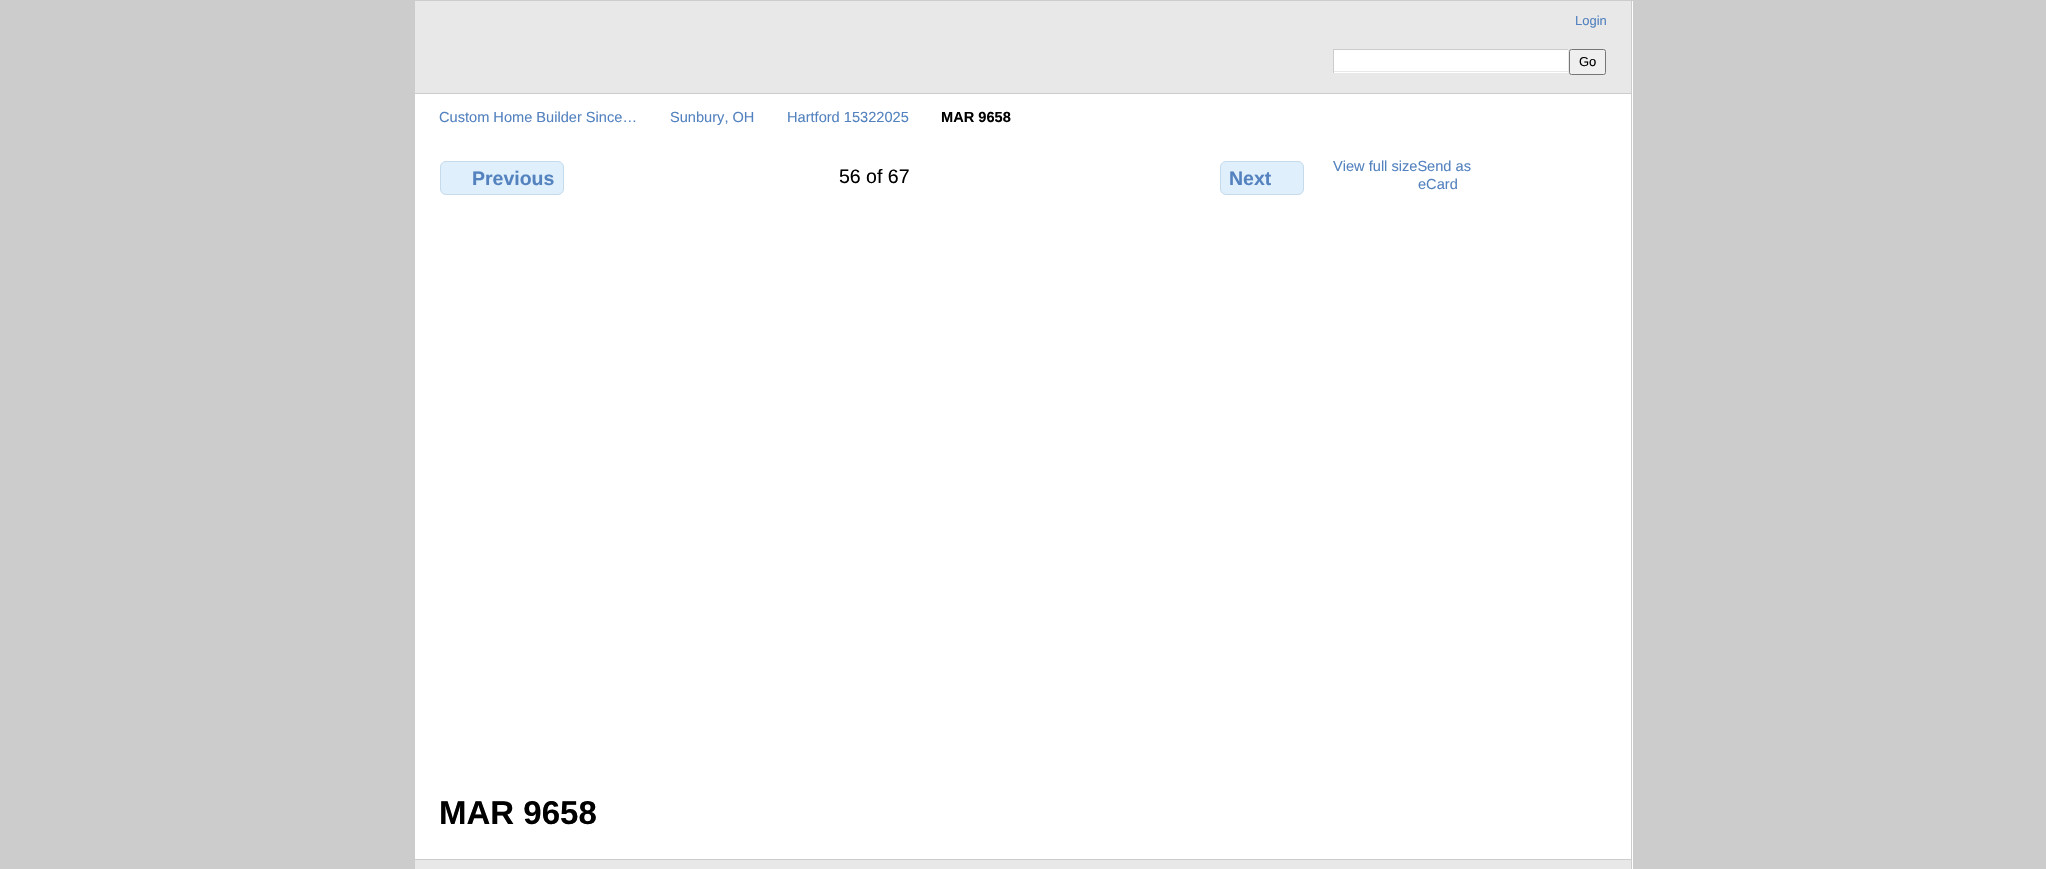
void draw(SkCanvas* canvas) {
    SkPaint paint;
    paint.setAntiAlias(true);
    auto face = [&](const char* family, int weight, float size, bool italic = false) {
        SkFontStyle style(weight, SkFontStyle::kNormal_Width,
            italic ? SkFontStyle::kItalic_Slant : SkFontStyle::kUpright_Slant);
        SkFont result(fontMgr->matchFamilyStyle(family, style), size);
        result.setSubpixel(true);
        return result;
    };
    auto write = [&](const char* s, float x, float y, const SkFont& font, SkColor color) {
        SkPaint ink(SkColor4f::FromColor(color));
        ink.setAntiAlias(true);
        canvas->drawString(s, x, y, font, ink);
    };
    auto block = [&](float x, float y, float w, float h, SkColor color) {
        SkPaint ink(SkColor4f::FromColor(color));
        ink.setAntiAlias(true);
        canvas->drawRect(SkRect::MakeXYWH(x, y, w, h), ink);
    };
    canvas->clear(SkColorSetRGB(204, 204, 204));
    block(415, 1, 1218, 868, SK_ColorWHITE);
    block(1631, 0, 1, 869, SkColorSetRGB(204, 204, 204));
    block(415, 1, 1216, 92, SkColorSetRGB(232, 232, 232));
    block(415, 93, 1216, 1, SkColorSetRGB(204, 204, 204));
    auto kFont1 = face("Liberation Sans", 400, 13);
    write("Login", 1575, 25, kFont1, SkColorSetRGB(83, 130, 191));
    block(1334, 50, 234, 23, SK_ColorWHITE);
    block(1333, 49, 236, 1, SkColorSetRGB(204, 204, 204));
    block(1568, 49, 1, 1, SkColorSetRGB(232, 232, 232));
    block(1333, 71, 236, 1, SkColorSetRGB(232, 232, 232));
    block(1333, 49, 1, 24, SkColorSetRGB(204, 204, 204));
    paint.setColor(SkColorSetRGB(239, 239, 239));
    canvas->drawRoundRect(SkRect::MakeXYWH(1569.5f, 49.5f, 36, 25), 2, 2, paint);
    paint.setStyle(SkPaint::kStroke_Style);
    paint.setStrokeWidth(1);
    paint.setColor(SkColorSetRGB(118, 118, 118));
    canvas->drawRoundRect(SkRect::MakeXYWH(1569.5f, 49.5f, 36, 25), 2, 2, paint);
    write("Go", 1579, 66, kFont1, SK_ColorBLACK);
    auto kFont2 = face("Liberation Sans", 400, 14.6f);
    write("Custom Home Builder Since…", 439, 122, kFont2, SkColorSetRGB(83, 130, 191));
    write("Sunbury, OH", 670, 122, kFont2, SkColorSetRGB(83, 130, 191));
    write("Hartford 15322025", 787, 122, kFont2, SkColorSetRGB(83, 130, 191));
    auto kFont3 = face("Liberation Sans", 700, 14.6f);
    write("MAR 9658", 941, 122, kFont3, SK_ColorBLACK);
    paint.setStyle(SkPaint::kFill_Style);
    paint.setColor(SkColorSetRGB(223, 239, 252));
    canvas->drawRoundRect(SkRect::MakeXYWH(440.5f, 161.5f, 123, 33), 5.5f, 5.5f, paint);
    paint.setStyle(SkPaint::kStroke_Style);
    paint.setColor(SkColorSetRGB(197, 219, 236));
    canvas->drawRoundRect(SkRect::MakeXYWH(440.5f, 161.5f, 123, 33), 5.5f, 5.5f, paint);
    auto kFont4 = face("Liberation Sans", 700, 19.5f);
    write("Previous", 472, 185, kFont4, SkColorSetRGB(83, 130, 191));
    auto kFont5 = face("Liberation Sans", 400, 19.5f);
    write("56 of 67", 839, 183, kFont5, SK_ColorBLACK);
    paint.setStyle(SkPaint::kFill_Style);
    paint.setColor(SkColorSetRGB(223, 239, 252));
    canvas->drawRoundRect(SkRect::MakeXYWH(1220.5f, 161.5f, 83, 33), 5.5f, 5.5f, paint);
    paint.setStyle(SkPaint::kStroke_Style);
    paint.setColor(SkColorSetRGB(197, 219, 236));
    canvas->drawRoundRect(SkRect::MakeXYWH(1220.5f, 161.5f, 83, 33), 5.5f, 5.5f, paint);
    write("Next", 1229, 185, kFont4, SkColorSetRGB(83, 130, 191));
    auto kFont6 = face("Liberation Sans", 700, 33);
    write("MAR 9658", 439, 824, kFont6, SK_ColorBLACK);
    write("View full sizeSend as", 1333, 171, kFont2, SkColorSetRGB(83, 130, 191));
    write("eCard", 1418, 189, kFont2, SkColorSetRGB(83, 130, 191));
    block(415, 860, 1216, 9, SkColorSetRGB(232, 232, 232));
    block(415, 859, 1216, 1, SkColorSetRGB(204, 204, 204));
}
